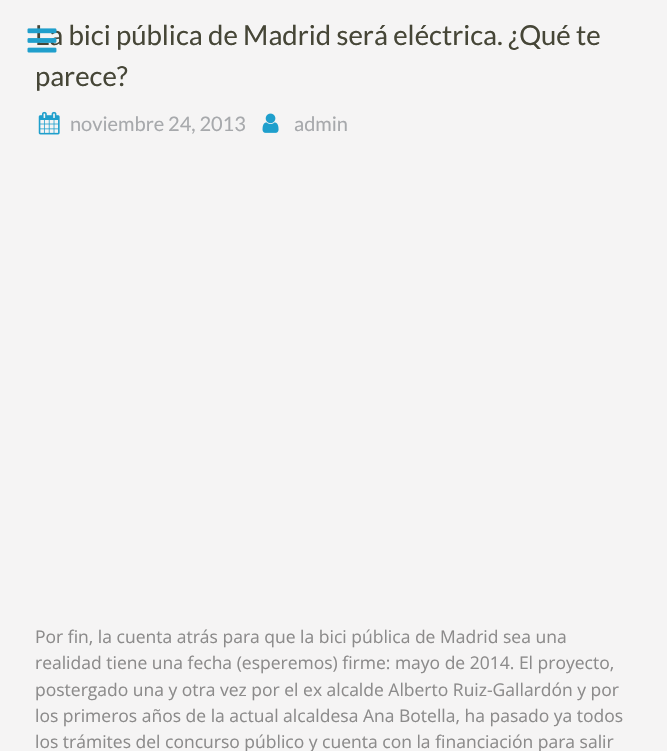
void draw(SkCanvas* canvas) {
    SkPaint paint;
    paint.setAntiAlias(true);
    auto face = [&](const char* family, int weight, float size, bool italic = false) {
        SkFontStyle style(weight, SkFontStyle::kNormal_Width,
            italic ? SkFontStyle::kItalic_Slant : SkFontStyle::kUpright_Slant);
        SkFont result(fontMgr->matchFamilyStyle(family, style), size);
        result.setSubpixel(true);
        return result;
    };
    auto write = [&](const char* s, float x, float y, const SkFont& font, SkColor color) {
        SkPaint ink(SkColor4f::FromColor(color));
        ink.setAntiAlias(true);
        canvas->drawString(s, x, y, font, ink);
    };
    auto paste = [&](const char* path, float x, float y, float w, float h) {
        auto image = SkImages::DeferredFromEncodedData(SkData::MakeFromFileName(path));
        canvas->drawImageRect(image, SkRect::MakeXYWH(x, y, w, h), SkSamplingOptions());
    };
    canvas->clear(SkColorSetRGB(245, 244, 244));
    auto kFont1 = face("Lato", 400, 27.5f);
    write("La bici pública de Madrid será eléctrica. ¿Qué te", 35, 45, kFont1, SkColorSetRGB(70, 70, 55));
    write("parece?", 35, 86, kFont1, SkColorSetRGB(70, 70, 55));
    paste("pic1.png", 38, 111, 22, 24);
    auto kFont2 = face("Lato", 400, 20);
    write("noviembre 24, 2013", 70, 131, kFont2, SkColorSetRGB(167, 169, 172));
    paste("pic2.png", 262, 113, 17, 20);
    write("admin", 294, 131, kFont2, SkColorSetRGB(167, 169, 172));
    auto kFont3 = face("Open Sans", 400, 17.5f);
    write("Por fin, la cuenta atrás para que la bici pública de Madrid sea una", 35, 643, kFont3, SkColorSetRGB(140, 139, 139));
    write("realidad tiene una fecha (esperemos) firme: mayo de 2014. El proyecto,", 35, 669, kFont3, SkColorSetRGB(140, 139, 139));
    write("postergado una y otra vez por el ex alcalde Alberto Ruiz-Gallardón y por", 35, 696, kFont3, SkColorSetRGB(140, 139, 139));
    write("los primeros años de la actual alcaldesa Ana Botella, ha pasado ya todos", 35, 722, kFont3, SkColorSetRGB(140, 139, 139));
    write("los trámites del concurso público y cuenta con la financiación para salir", 35, 748, kFont3, SkColorSetRGB(140, 139, 139));
    paste("pic3.png", 27, 28, 30, 25);
}
